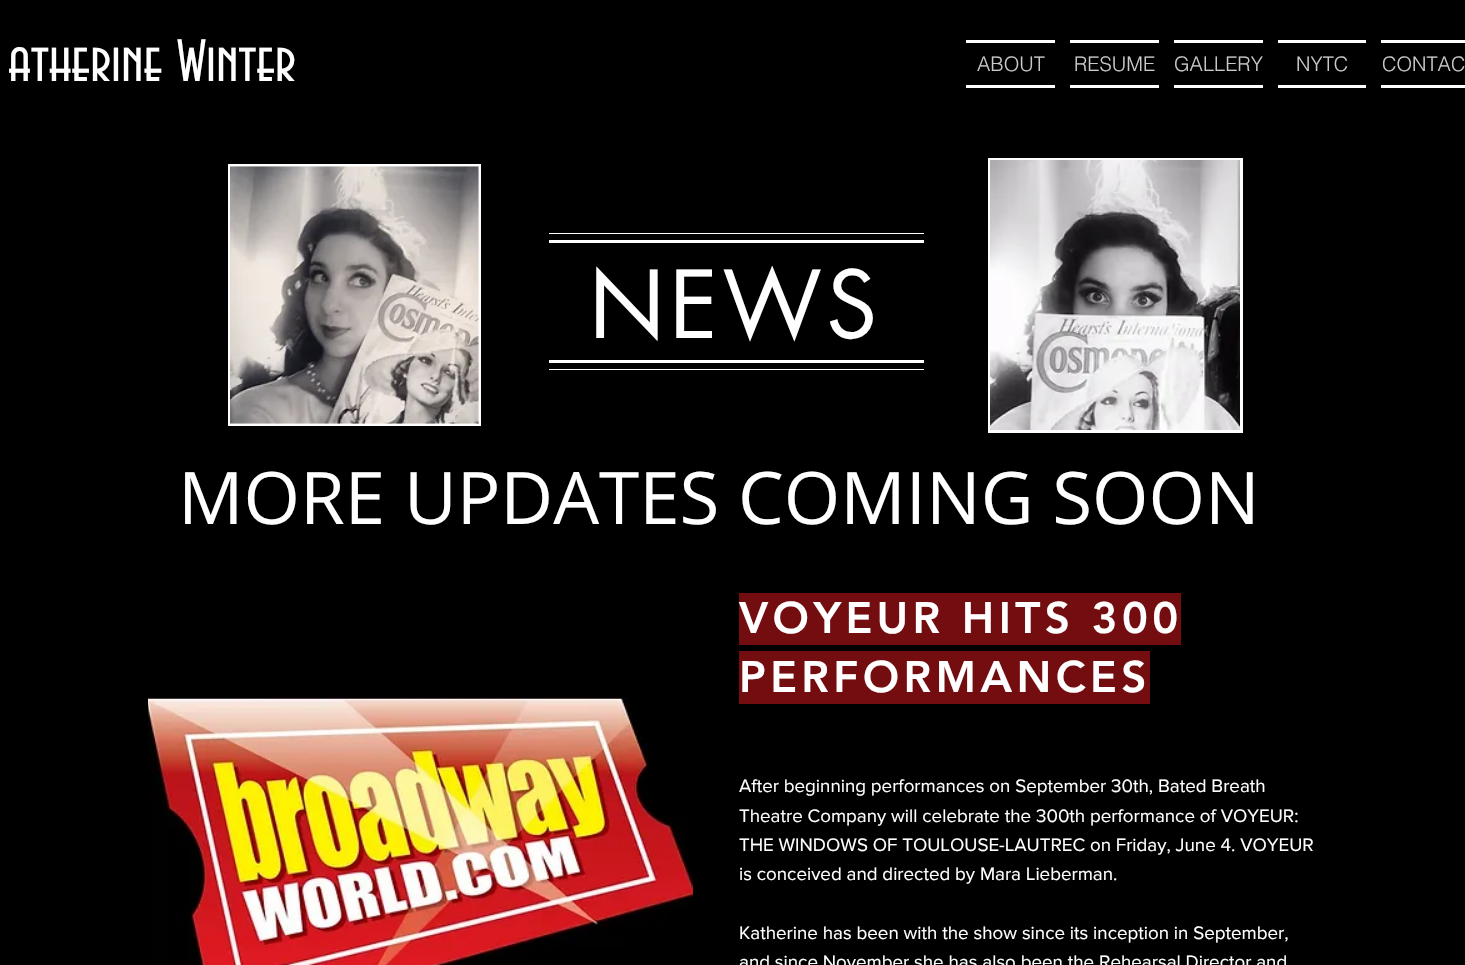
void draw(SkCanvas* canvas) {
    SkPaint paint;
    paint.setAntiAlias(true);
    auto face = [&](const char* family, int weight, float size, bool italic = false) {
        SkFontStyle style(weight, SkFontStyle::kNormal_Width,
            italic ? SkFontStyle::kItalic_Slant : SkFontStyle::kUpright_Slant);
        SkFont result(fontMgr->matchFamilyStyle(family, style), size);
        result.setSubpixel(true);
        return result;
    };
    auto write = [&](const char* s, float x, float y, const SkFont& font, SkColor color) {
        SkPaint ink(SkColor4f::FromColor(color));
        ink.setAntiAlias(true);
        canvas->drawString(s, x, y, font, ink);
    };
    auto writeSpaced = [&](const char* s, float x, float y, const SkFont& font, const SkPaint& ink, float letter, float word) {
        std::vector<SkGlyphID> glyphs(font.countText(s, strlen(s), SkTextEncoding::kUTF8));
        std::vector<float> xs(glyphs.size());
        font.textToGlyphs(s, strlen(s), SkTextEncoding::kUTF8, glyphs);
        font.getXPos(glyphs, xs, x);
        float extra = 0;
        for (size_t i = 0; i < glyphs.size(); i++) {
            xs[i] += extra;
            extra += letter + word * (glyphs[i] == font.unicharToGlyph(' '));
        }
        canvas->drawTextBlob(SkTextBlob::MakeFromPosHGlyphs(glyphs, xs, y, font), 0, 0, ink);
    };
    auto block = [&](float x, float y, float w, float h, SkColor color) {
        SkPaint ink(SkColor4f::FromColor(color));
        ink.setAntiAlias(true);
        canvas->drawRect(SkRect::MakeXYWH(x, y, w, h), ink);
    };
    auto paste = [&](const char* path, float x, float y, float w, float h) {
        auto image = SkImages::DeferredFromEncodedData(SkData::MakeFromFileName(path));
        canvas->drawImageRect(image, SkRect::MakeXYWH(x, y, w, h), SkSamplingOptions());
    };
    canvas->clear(SK_ColorBLACK);
    auto kFont1 = face("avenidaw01", 400, 62.5f);
    write("atherine Winter", 8, 81, kFont1, SK_ColorWHITE);
    block(966, 40, 89, 3, SK_ColorWHITE);
    block(966, 85, 89, 3, SK_ColorWHITE);
    auto kFont2 = face("helvetica", 300, 20);
    write("ABOUT", 977, 71, kFont2, SkColorSetRGB(202, 202, 202));
    block(1070, 40, 89, 3, SK_ColorWHITE);
    block(1070, 85, 89, 3, SK_ColorWHITE);
    write("RESUME", 1074, 71, kFont2, SkColorSetRGB(202, 202, 202));
    block(1174, 40, 89, 3, SK_ColorWHITE);
    block(1174, 85, 89, 3, SK_ColorWHITE);
    write("GALLERY", 1174, 71, kFont2, SkColorSetRGB(202, 202, 202));
    block(1278, 40, 88, 3, SK_ColorWHITE);
    block(1278, 85, 88, 3, SK_ColorWHITE);
    write("NYTC", 1296, 71, kFont2, SkColorSetRGB(202, 202, 202));
    block(1381, 40, 84, 3, SK_ColorWHITE);
    block(1381, 85, 84, 3, SK_ColorWHITE);
    write("CONTAC", 1382, 71, kFont2, SkColorSetRGB(202, 202, 202));
    block(228, 164, 253, 262, SK_ColorWHITE);
    paste("pic1.png", 230, 166, 249, 258);
    block(549, 233, 375, 1, SK_ColorWHITE);
    block(549, 240, 375, 3, SK_ColorWHITE);
    block(988, 158, 255, 275, SK_ColorWHITE);
    paste("pic2.png", 990, 160, 250, 270);
    auto kFont3 = face("futura", 400, 91);
    paint.setColor(SK_ColorWHITE);
    writeSpaced("NEWS", 589, 338, kFont3, paint, 4.5f, 0);
    block(549, 360, 375, 3, SK_ColorWHITE);
    block(549, 369, 375, 1, SK_ColorWHITE);
    auto kFont4 = face("Open Sans", 400, 72.5f);
    write("MORE UPDATES COMING SOON", 178, 524, kFont4, SK_ColorWHITE);
    block(739, 593, 442, 52, SkColorSetRGB(115, 13, 15));
    auto kFont5 = face("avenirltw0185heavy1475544", 900, 43.75f);
    writeSpaced("VOYEUR HITS 300", 739, 633, kFont5, paint, 4.4f, 0);
    block(739, 651, 411, 53, SkColorSetRGB(115, 13, 15));
    writeSpaced("PERFORMANCES", 739, 692, kFont5, paint, 4.4f, 0);
    paste("pic3.png", 148, 697, 545, 268);
    auto kFont6 = face("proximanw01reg", 400, 18.75f);
    write("After beginning performances on September 30th, Bated Breath", 739, 792, kFont6, SK_ColorWHITE);
    write("Theatre Company will celebrate the 300th performance of VOYEUR:", 739, 822, kFont6, SK_ColorWHITE);
    write("THE WINDOWS OF TOULOUSE-LAUTREC on Friday, June 4. VOYEUR", 739, 851, kFont6, SK_ColorWHITE);
    write("is conceived and directed by Mara Lieberman.", 739, 880, kFont6, SK_ColorWHITE);
    write("Katherine has been with the show since its inception in September,", 739, 939, kFont6, SK_ColorWHITE);
    write("and since November she has also been the Rehearsal Director and", 739, 968, kFont6, SK_ColorWHITE);
}
